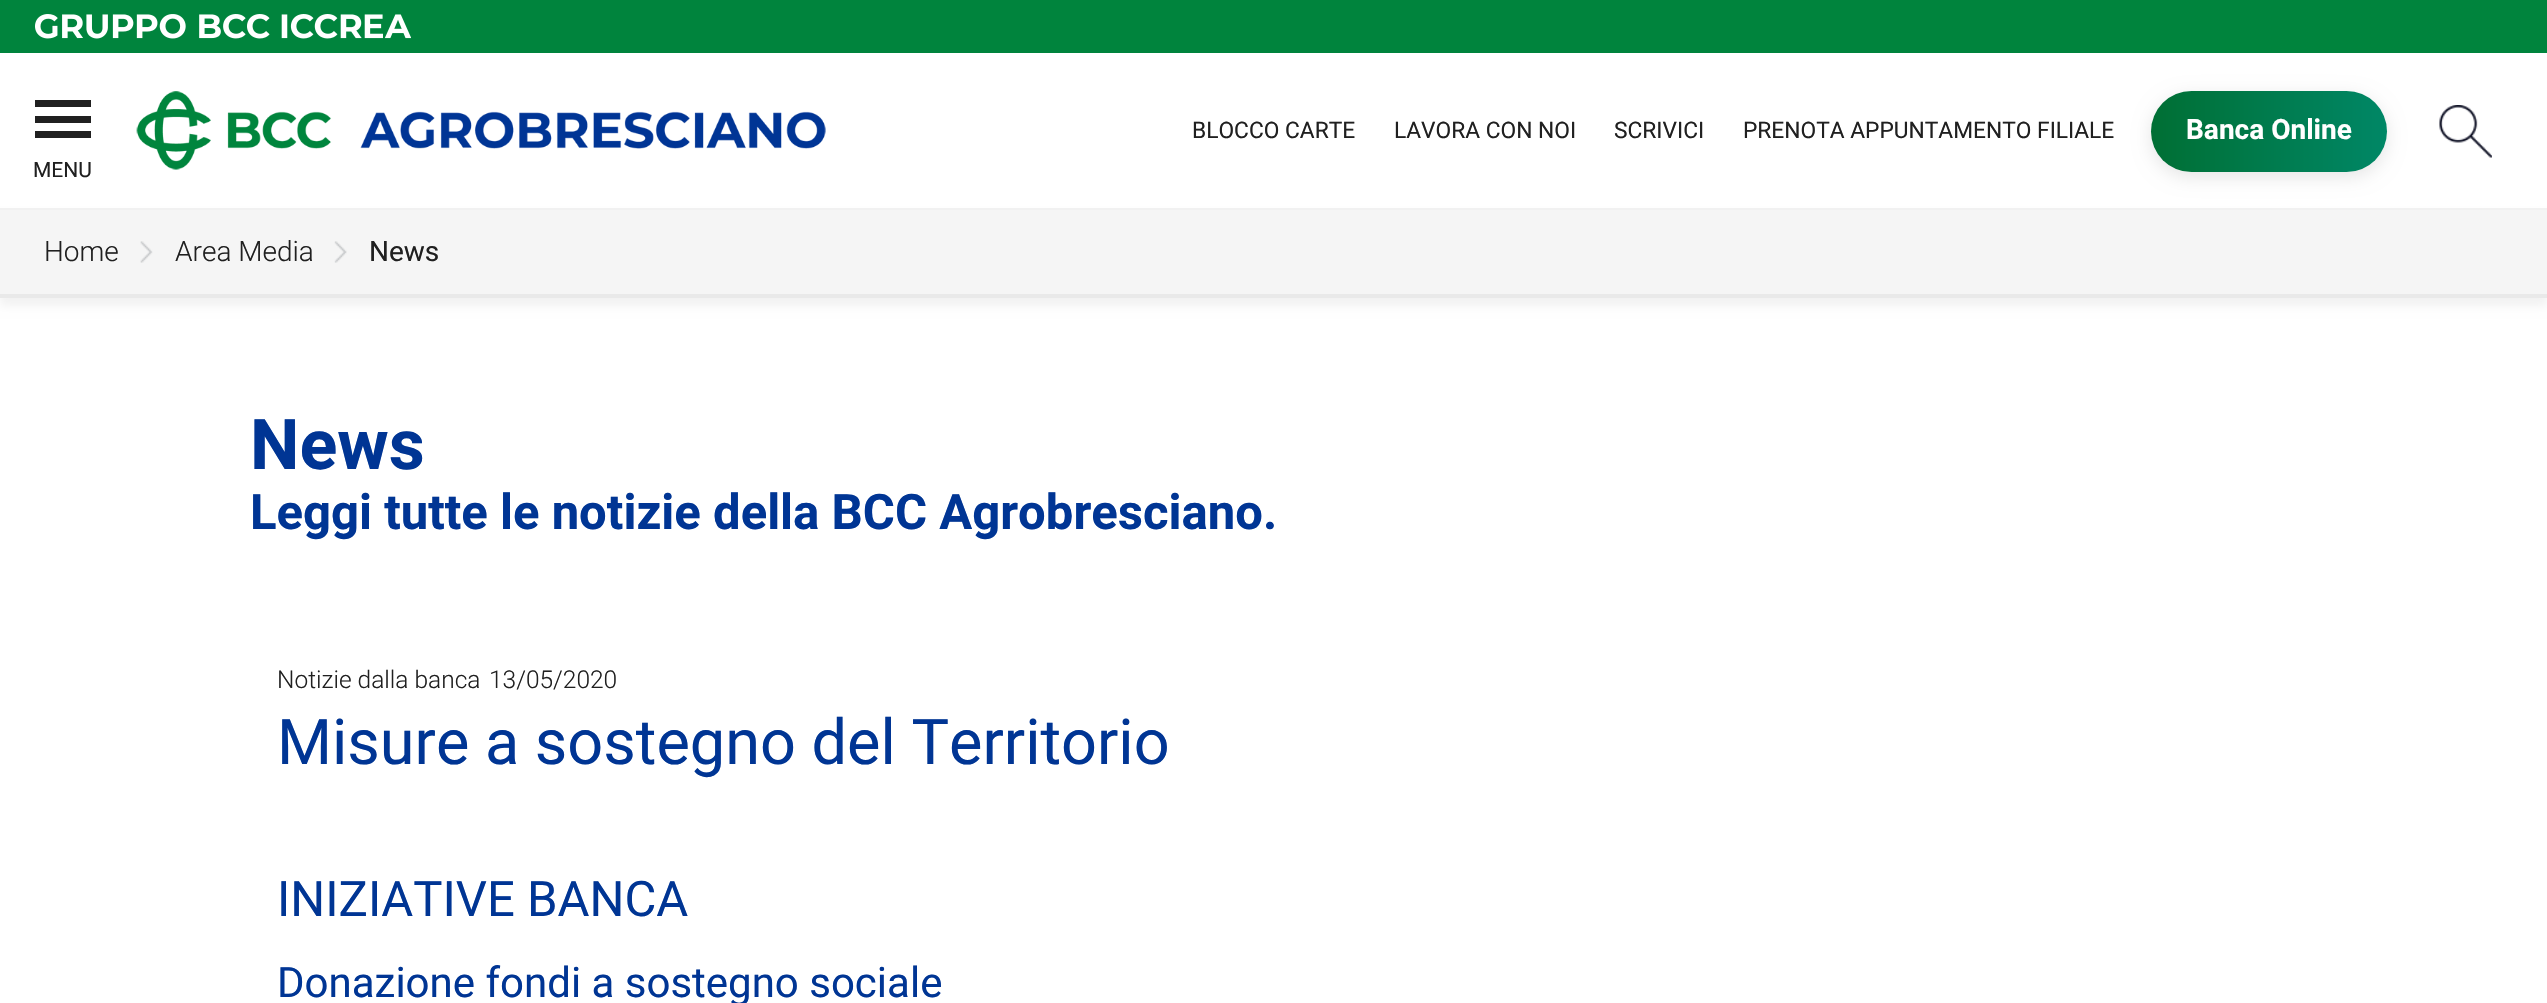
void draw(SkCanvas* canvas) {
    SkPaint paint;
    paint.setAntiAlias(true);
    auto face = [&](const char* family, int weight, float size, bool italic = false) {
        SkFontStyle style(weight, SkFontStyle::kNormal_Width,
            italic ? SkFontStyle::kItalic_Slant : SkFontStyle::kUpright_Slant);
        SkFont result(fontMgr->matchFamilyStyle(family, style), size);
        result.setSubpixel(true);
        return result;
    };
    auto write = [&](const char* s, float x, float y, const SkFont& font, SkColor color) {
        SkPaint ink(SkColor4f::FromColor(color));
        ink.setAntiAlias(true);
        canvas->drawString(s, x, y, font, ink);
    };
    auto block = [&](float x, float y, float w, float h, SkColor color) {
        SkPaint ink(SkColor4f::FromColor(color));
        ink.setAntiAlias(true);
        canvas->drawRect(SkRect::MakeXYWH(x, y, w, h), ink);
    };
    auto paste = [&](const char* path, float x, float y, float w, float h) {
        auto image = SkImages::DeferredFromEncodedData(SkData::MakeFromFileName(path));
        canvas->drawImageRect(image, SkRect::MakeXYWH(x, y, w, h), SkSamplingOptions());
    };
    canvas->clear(SK_ColorWHITE);
    block(0, 0, 2547, 53, SkColorSetRGB(0, 132, 61));
    paste("pic1.png", 35, 14, 376, 25);
    paint.setColor(SkColorSetARGB(13, 0, 0, 0));
    paint.setMaskFilter(SkMaskFilter::MakeBlur(kNormal_SkBlurStyle, 4.5f));
    canvas->drawRect(SkRect::MakeXYWH(0, 219, 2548, 87), paint);
    paint.setMaskFilter(nullptr);
    block(0, 208, 2547, 2, SkColorSetRGB(241, 241, 241));
    paste("pic2.png", 136, 91, 690, 79);
    auto kFont1 = face("Roboto", 400, 22.75f);
    write("BLOCCO CARTE", 1192, 138, kFont1, SkColorSetRGB(32, 32, 32));
    write("LAVORA CON NOI", 1394, 138, kFont1, SkColorSetRGB(32, 32, 32));
    write("SCRIVICI", 1614, 138, kFont1, SkColorSetRGB(32, 32, 32));
    write("PRENOTA APPUNTAMENTO FILIALE", 1743, 138, kFont1, SkColorSetRGB(32, 32, 32));
    paint.setColor(SkColorSetARGB(26, 0, 0, 0));
    paint.setMaskFilter(SkMaskFilter::MakeBlur(kNormal_SkBlurStyle, 9));
    canvas->drawRoundRect(SkRect::MakeXYWH(2151, 96, 236, 81), 40.5f, 40.5f, paint);
    paint.setMaskFilter(nullptr);
    {
        const SkColor colors[] = {SkColorSetRGB(0, 135, 102), SkColorSetRGB(0, 111, 52)};
        const float stops[] = {0, 1};
        const SkPoint ends[] = {{2387, 131}, {2151, 131}};
        paint.setShader(SkGradientShader::MakeLinear(ends, colors, stops, 2, SkTileMode::kClamp));
        paint.setAlpha(255);
    }
    canvas->drawRoundRect(SkRect::MakeXYWH(2151, 91, 236, 81), 40.5f, 40.5f, paint);
    auto kFont2 = face("Roboto", 700, 28);
    write("Banca Online", 2186, 139, kFont2, SK_ColorWHITE);
    paste("pic3.png", 2439, 105, 53, 53);
    block(35, 116, 56, 7, SkColorSetRGB(32, 32, 32));
    block(35, 100, 56, 7, SkColorSetRGB(32, 32, 32));
    block(35, 131, 56, 7, SkColorSetRGB(32, 32, 32));
    auto kFont3 = face("Roboto", 400, 21);
    write("MENU", 33, 177, kFont3, SkColorSetRGB(32, 32, 32));
    block(0, 210, 2547, 84, SkColorSetRGB(245, 245, 245));
    block(0, 294, 2547, 4, SkColorSetRGB(233, 233, 233));
    auto kFont4 = face("Roboto", 300, 28);
    write("Home", 44, 261, kFont4, SkColorSetRGB(32, 32, 32));
    paste("pic4.png", 140, 241, 13, 22);
    write("Area Media", 175, 261, kFont4, SkColorSetRGB(32, 32, 32));
    paste("pic5.png", 334, 241, 13, 22);
    auto kFont5 = face("Roboto", 400, 28);
    write("News", 369, 261, kFont5, SkColorSetRGB(32, 32, 32));
    auto kFont6 = face("Roboto", 700, 70);
    write("News", 250, 469, kFont6, SkColorSetRGB(0, 53, 148));
    auto kFont7 = face("Roboto", 700, 49);
    write("Leggi tutte le notizie della BCC Agrobresciano.", 250, 529, kFont7, SkColorSetRGB(0, 53, 148));
    auto kFont8 = face("Roboto", 300, 24.5f);
    write("Notizie dalla banca", 277, 688, kFont8, SkColorSetRGB(32, 32, 32));
    write("13/05/2020", 489, 688, kFont8, SkColorSetRGB(32, 32, 32));
    auto kFont9 = face("Roboto", 400, 63);
    write("Misure a sostegno del Territorio", 277, 764, kFont9, SkColorSetRGB(0, 53, 148));
    auto kFont10 = face("Roboto", 400, 49);
    write("INIZIATIVE BANCA", 277, 916, kFont10, SkColorSetRGB(0, 53, 148));
    auto kFont11 = face("Roboto", 400, 42);
    write("Donazione fondi a sostegno sociale", 277, 997, kFont11, SkColorSetRGB(0, 53, 148));
}
